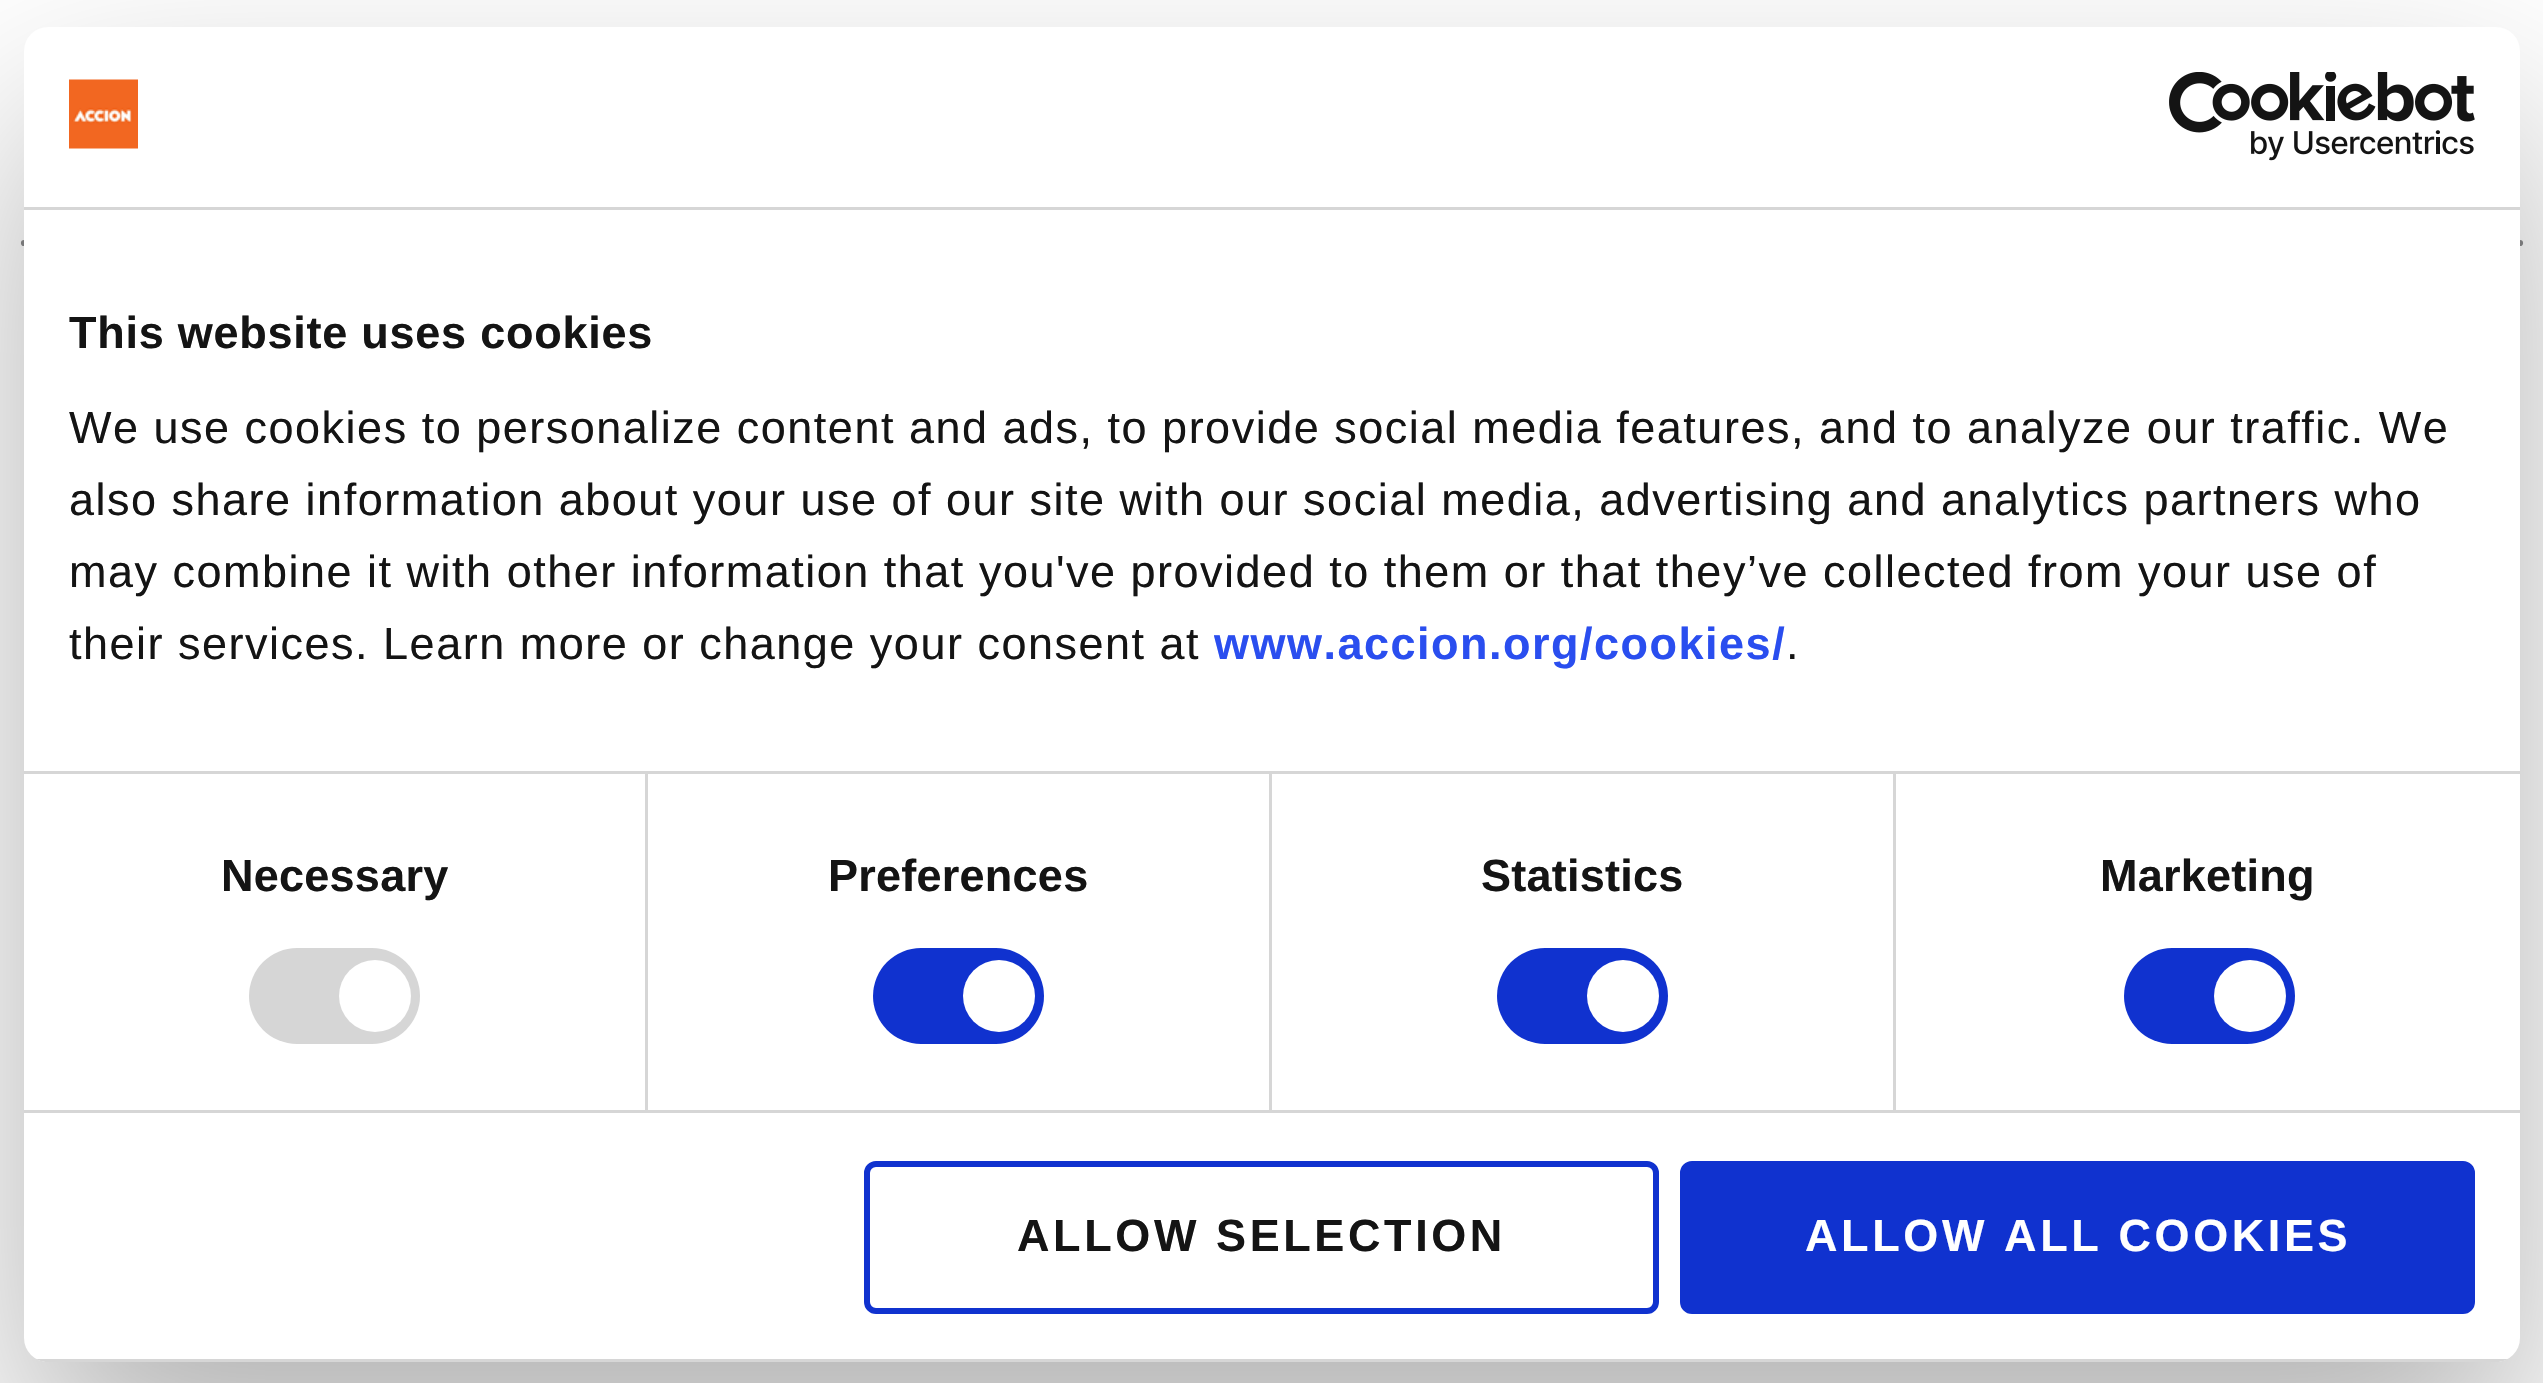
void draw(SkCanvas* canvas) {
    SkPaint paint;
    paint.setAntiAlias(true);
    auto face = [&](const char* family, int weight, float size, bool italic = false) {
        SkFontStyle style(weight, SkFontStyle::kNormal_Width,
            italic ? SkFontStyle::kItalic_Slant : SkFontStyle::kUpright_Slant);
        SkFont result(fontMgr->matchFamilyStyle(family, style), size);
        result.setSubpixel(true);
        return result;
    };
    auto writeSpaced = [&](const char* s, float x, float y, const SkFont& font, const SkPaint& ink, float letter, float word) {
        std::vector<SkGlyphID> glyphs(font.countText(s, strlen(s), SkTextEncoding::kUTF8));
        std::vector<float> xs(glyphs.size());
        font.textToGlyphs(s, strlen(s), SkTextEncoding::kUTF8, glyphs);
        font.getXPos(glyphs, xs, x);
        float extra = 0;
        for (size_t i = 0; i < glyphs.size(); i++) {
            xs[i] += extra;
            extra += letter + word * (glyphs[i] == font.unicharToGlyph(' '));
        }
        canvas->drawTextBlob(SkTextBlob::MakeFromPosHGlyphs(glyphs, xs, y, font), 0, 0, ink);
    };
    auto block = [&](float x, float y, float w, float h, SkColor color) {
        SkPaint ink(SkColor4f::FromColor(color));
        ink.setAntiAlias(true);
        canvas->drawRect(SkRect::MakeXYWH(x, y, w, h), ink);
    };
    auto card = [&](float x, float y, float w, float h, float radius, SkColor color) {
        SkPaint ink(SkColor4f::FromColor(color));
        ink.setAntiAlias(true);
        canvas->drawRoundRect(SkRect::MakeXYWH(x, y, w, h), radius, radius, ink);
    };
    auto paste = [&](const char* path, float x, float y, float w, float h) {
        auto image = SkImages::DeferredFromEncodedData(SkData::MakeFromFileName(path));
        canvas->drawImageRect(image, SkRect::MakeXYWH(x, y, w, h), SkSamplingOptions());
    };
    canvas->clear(SK_ColorWHITE);
    paint.setStyle(SkPaint::kStroke_Style);
    paint.setStrokeWidth(6.2f);
    paint.setStrokeCap(SkPaint::kRound_Cap);
    paint.setColor(SkColorSetRGB(139, 139, 140));
    paint.setPathEffect(SkDashPathEffect::Make({{0, 48}}, 0));
    canvas->drawPath(SkPathBuilder().moveTo(24, 243).lineTo(2520.6f, 243).detach(), paint);
    paint.setPathEffect(nullptr);
    block(23, 239, 2498, 1, SK_ColorWHITE);
    paint.setStyle(SkPaint::kFill_Style);
    paint.setColor(SkColorSetARGB(77, 0, 0, 0));
    paint.setMaskFilter(SkMaskFilter::MakeBlur(kNormal_SkBlurStyle, 102));
    canvas->drawRoundRect(SkRect::MakeXYWH(24, 123, 2496, 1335), 24, 24, paint);
    paint.setMaskFilter(nullptr);
    card(24, 27, 2496, 1335, 24, SK_ColorWHITE);
    block(24, 207, 2496, 3, SkColorSetRGB(214, 214, 214));
    paste("pic1.png", 69, 79, 69, 70);
    paste("pic2.png", 2169, 72, 306, 89);
    block(24, 771, 2496, 3, SkColorSetRGB(214, 214, 214));
    auto kFont1 = face("Liberation Sans", 700, 45);
    paint.setColor(SkColorSetRGB(20, 20, 20));
    writeSpaced("This website uses cookies", 69, 348, kFont1, paint, 0.75f, 0);
    auto kFont2 = face("Liberation Sans", 400, 45);
    writeSpaced("We use cookies to personalize content and ads, to provide social media features, and to analyze our traffic. We", 69, 443, kFont2, paint, 1.5f, 0);
    writeSpaced("also share information about your use of our site with our social media, advertising and analytics partners who", 69, 515, kFont2, paint, 1.5f, 0);
    writeSpaced("may combine it with other information that you've provided to them or that they’ve collected from your use of", 69, 587, kFont2, paint, 1.5f, 0);
    writeSpaced("their services. Learn more or change your consent at", 69, 659, kFont2, paint, 1.5f, 0);
    paint.setColor(SkColorSetRGB(42, 78, 239));
    writeSpaced("www.accion.org/cookies/", 1214, 659, kFont1, paint, 1.5f, 0);
    paint.setColor(SkColorSetRGB(20, 20, 20));
    writeSpaced(".", 1786, 659, kFont2, paint, 1.5f, 0);
    block(24, 1110, 2496, 3, SkColorSetRGB(214, 214, 214));
    block(645, 774, 3, 336, SkColorSetRGB(214, 214, 214));
    writeSpaced("Necessary", 221, 891, kFont1, paint, 0.25f, 0);
    card(249, 948, 171, 96, 48, SkColorSetRGB(214, 214, 214));
    paint.setColor(SK_ColorWHITE);
    canvas->drawCircle(375, 996, 36, paint);
    block(1269, 774, 3, 336, SkColorSetRGB(214, 214, 214));
    paint.setColor(SkColorSetRGB(20, 20, 20));
    writeSpaced("Preferences", 828, 891, kFont1, paint, 0.25f, 0);
    card(873, 948, 171, 96, 48, SkColorSetRGB(16, 50, 207));
    paint.setColor(SK_ColorWHITE);
    canvas->drawCircle(999, 996, 36, paint);
    block(1893, 774, 3, 336, SkColorSetRGB(214, 214, 214));
    paint.setColor(SkColorSetRGB(20, 20, 20));
    writeSpaced("Statistics", 1481, 891, kFont1, paint, 0.25f, 0);
    card(1497, 948, 171, 96, 48, SkColorSetRGB(16, 50, 207));
    paint.setColor(SK_ColorWHITE);
    canvas->drawCircle(1623, 996, 36, paint);
    paint.setColor(SkColorSetRGB(20, 20, 20));
    writeSpaced("Marketing", 2100, 891, kFont1, paint, 0.25f, 0);
    card(2124, 948, 171, 96, 48, SkColorSetRGB(16, 50, 207));
    paint.setColor(SK_ColorWHITE);
    canvas->drawCircle(2250, 996, 36, paint);
    canvas->save();
    canvas->clipPath(SkPathBuilder().moveTo(48, 27).lineTo(2496, 27).cubicTo(2509.5f, 27, 2520, 37.5f, 2520, 51).lineTo(2520, 1338).cubicTo(2520, 1351.5f, 2509.5f, 1362, 2496, 1362).lineTo(48, 1362).cubicTo(34.5f, 1362, 24, 1351.5f, 24, 1338).lineTo(24, 51).cubicTo(24, 37.5f, 34.5f, 27, 48, 27).close().detach(), true);
    block(36, 1359, 2472, 3, SkColorSetRGB(214, 214, 214));
    canvas->restore();
    paint.setStyle(SkPaint::kStroke_Style);
    paint.setStrokeWidth(6);
    paint.setStrokeCap(SkPaint::kButt_Cap);
    paint.setColor(SkColorSetRGB(16, 50, 207));
    canvas->drawRoundRect(SkRect::MakeXYWH(867, 1164, 789, 147), 9, 9, paint);
    paint.setStyle(SkPaint::kFill_Style);
    paint.setColor(SkColorSetRGB(20, 20, 20));
    writeSpaced("ALLOW SELECTION", 1017, 1251, kFont1, paint, 3.6f, 0);
    paint.setColor(SkColorSetRGB(16, 50, 207));
    canvas->drawRoundRect(SkRect::MakeXYWH(1683, 1164, 789, 147), 9, 9, paint);
    paint.setStyle(SkPaint::kStroke_Style);
    canvas->drawRoundRect(SkRect::MakeXYWH(1683, 1164, 789, 147), 9, 9, paint);
    paint.setStyle(SkPaint::kFill_Style);
    paint.setColor(SK_ColorWHITE);
    writeSpaced("ALLOW ALL COOKIES", 1805, 1251, kFont1, paint, 3.6f, 0);
}
